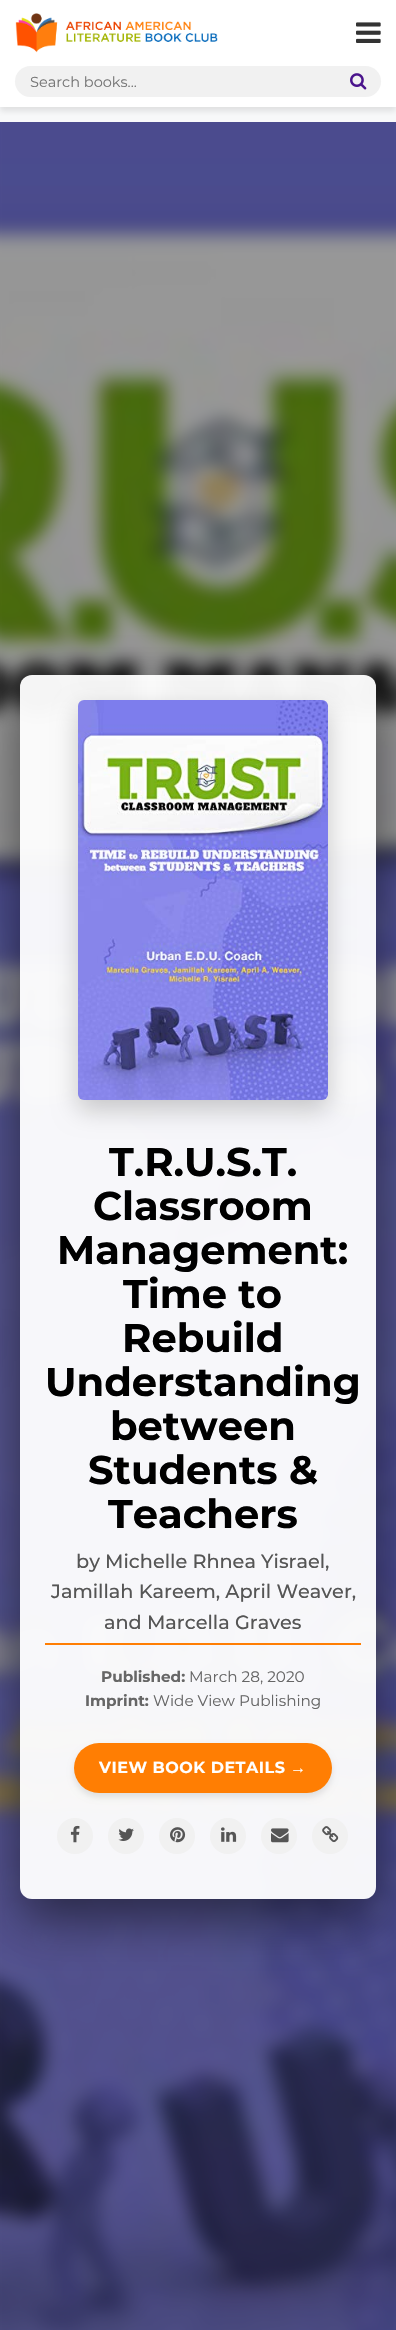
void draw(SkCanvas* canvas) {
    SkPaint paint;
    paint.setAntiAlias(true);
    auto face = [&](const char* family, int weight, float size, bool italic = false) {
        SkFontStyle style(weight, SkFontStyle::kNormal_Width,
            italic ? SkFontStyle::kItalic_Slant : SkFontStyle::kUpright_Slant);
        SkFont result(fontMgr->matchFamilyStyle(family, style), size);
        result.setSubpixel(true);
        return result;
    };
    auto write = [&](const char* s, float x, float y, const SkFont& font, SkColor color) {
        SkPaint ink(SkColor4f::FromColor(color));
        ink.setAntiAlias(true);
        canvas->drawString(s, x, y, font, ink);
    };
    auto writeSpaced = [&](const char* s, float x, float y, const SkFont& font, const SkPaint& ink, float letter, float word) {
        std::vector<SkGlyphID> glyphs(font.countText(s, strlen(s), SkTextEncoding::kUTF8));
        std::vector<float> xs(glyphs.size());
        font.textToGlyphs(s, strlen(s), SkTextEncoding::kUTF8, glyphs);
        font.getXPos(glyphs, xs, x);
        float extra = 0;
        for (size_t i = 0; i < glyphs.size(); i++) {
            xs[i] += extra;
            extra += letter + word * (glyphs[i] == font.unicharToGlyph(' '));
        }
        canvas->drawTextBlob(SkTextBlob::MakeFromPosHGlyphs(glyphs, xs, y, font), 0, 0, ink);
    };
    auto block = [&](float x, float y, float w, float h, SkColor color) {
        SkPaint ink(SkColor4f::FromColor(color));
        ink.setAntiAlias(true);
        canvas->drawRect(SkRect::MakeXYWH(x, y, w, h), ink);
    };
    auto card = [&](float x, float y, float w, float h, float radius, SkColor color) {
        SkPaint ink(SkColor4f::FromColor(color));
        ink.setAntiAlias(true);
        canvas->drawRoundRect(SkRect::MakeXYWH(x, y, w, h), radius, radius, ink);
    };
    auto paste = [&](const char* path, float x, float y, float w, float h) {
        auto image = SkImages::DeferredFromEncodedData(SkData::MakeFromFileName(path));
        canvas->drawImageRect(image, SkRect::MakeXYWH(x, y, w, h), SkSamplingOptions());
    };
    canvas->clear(SkColorSetRGB(248, 249, 250));
    paint.setColor(SkColorSetARGB(26, 0, 0, 0));
    paint.setMaskFilter(SkMaskFilter::MakeBlur(kNormal_SkBlurStyle, 3));
    canvas->drawRect(SkRect::MakeXYWH(0, 4, 396, 107), paint);
    paint.setMaskFilter(nullptr);
    block(0, 0, 396, 107, SK_ColorWHITE);
    paste("pic1.png", 15, 13, 203, 40);
    paste("pic2.png", 356, 22, 25, 21);
    card(15, 66, 366, 31, 15.5f, SkColorSetRGB(241, 241, 241));
    auto kFont1 = face("Montserrat", 400, 14.5f);
    write("Search books...", 30, 87, kFont1, SkColorSetRGB(117, 117, 117));
    paste("pic3.png", 350, 73, 17, 17);
    paste("pic4.png", 0, 122, 396, 2208);
    canvas->save();
    canvas->clipPath(SkPathBuilder(SkPathFillType::kEvenOdd).moveTo(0, 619).lineTo(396, 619).lineTo(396, 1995).lineTo(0, 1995).close().moveTo(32, 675).lineTo(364, 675).cubicTo(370.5f, 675, 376, 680.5f, 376, 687).lineTo(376, 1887).cubicTo(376, 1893.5f, 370.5f, 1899, 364, 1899).lineTo(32, 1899).cubicTo(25.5f, 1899, 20, 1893.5f, 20, 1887).lineTo(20, 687).cubicTo(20, 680.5f, 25.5f, 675, 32, 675).close().detach(), true);
    paint.setColor(SkColorSetARGB(128, 0, 0, 0));
    paint.setMaskFilter(SkMaskFilter::MakeBlur(kNormal_SkBlurStyle, 25));
    canvas->drawRoundRect(SkRect::MakeXYWH(20, 695, 356, 1224), 12, 12, paint);
    paint.setMaskFilter(nullptr);
    canvas->restore();
    card(20, 675, 356, 1224, 12, SkColorSetARGB(242, 255, 255, 255));
    paint.setColor(SkColorSetARGB(51, 0, 0, 0));
    paint.setMaskFilter(SkMaskFilter::MakeBlur(kNormal_SkBlurStyle, 12.5f));
    canvas->drawRoundRect(SkRect::MakeXYWH(78, 710, 250, 400), 6, 6, paint);
    paint.setMaskFilter(nullptr);
    paste("pic5.png", 78, 700, 250, 400);
    auto kFont2 = face("Montserrat", 700, 40);
    write("T.R.U.S.T.", 109, 1176, kFont2, SK_ColorBLACK);
    write("Classroom", 93, 1220, kFont2, SK_ColorBLACK);
    write("Management:", 57, 1264, kFont2, SK_ColorBLACK);
    write("Time to", 123, 1308, kFont2, SK_ColorBLACK);
    write("Rebuild", 122, 1352, kFont2, SK_ColorBLACK);
    write("Understanding", 45, 1396, kFont2, SK_ColorBLACK);
    write("between", 110, 1440, kFont2, SK_ColorBLACK);
    write("Students &", 88, 1484, kFont2, SK_ColorBLACK);
    write("Teachers", 108, 1528, kFont2, SK_ColorBLACK);
    block(45, 1643, 316, 2, SkColorSetRGB(255, 126, 3));
    auto kFont3 = face("Montserrat", 500, 19.25f);
    write("by Michelle Rhnea Yisrael,", 76, 1568, kFont3, SkColorSetRGB(85, 85, 85));
    write("Jamillah Kareem, April Weaver,", 51, 1598, kFont3, SkColorSetRGB(85, 85, 85));
    write("and Marcella Graves", 104, 1629, kFont3, SkColorSetRGB(85, 85, 85));
    auto kFont4 = face("Montserrat", 700, 15.25f);
    write("Published:", 101, 1682, kFont4, SkColorSetRGB(102, 102, 102));
    auto kFont5 = face("Montserrat", 400, 15.25f);
    write("March 28, 2020", 189, 1682, kFont5, SkColorSetRGB(102, 102, 102));
    write("Imprint:", 85, 1706, kFont4, SkColorSetRGB(102, 102, 102));
    write("Wide View Publishing", 153, 1706, kFont5, SkColorSetRGB(102, 102, 102));
    paint.setColor(SkColorSetARGB(26, 0, 0, 0));
    paint.setMaskFilter(SkMaskFilter::MakeBlur(kNormal_SkBlurStyle, 3));
    canvas->drawRoundRect(SkRect::MakeXYWH(74, 1747, 258, 50), 25, 25, paint);
    paint.setMaskFilter(nullptr);
    card(74, 1743, 258, 50, 25, SkColorSetRGB(255, 126, 3));
    auto kFont6 = face("Montserrat", 700, 16);
    paint.setColor(SK_ColorWHITE);
    writeSpaced("VIEW BOOK DETAILS", 99, 1773, kFont6, paint, 0.5f, 0);
    auto kFont7 = face("Liberation Sans", 700, 16);
    writeSpaced("→", 290, 1773, kFont7, paint, 0.5f, 0);
    paint.setColor(SkColorSetRGB(241, 241, 241));
    canvas->drawCircle(75, 1836, 18, paint);
    paste("pic6.png", 70, 1825, 10, 18);
    canvas->drawCircle(126, 1836, 18, paint);
    paste("pic7.png", 118, 1828, 16, 13);
    canvas->drawCircle(177, 1836, 18, paint);
    paste("pic8.png", 170, 1827, 16, 16);
    canvas->drawCircle(228, 1836, 18, paint);
    paste("pic9.png", 221, 1827, 16, 15);
    canvas->drawCircle(279, 1836, 18, paint);
    paste("pic10.png", 271, 1828, 18, 15);
    canvas->drawCircle(330, 1836, 18, paint);
    paste("pic11.png", 322, 1826, 17, 17);
}
